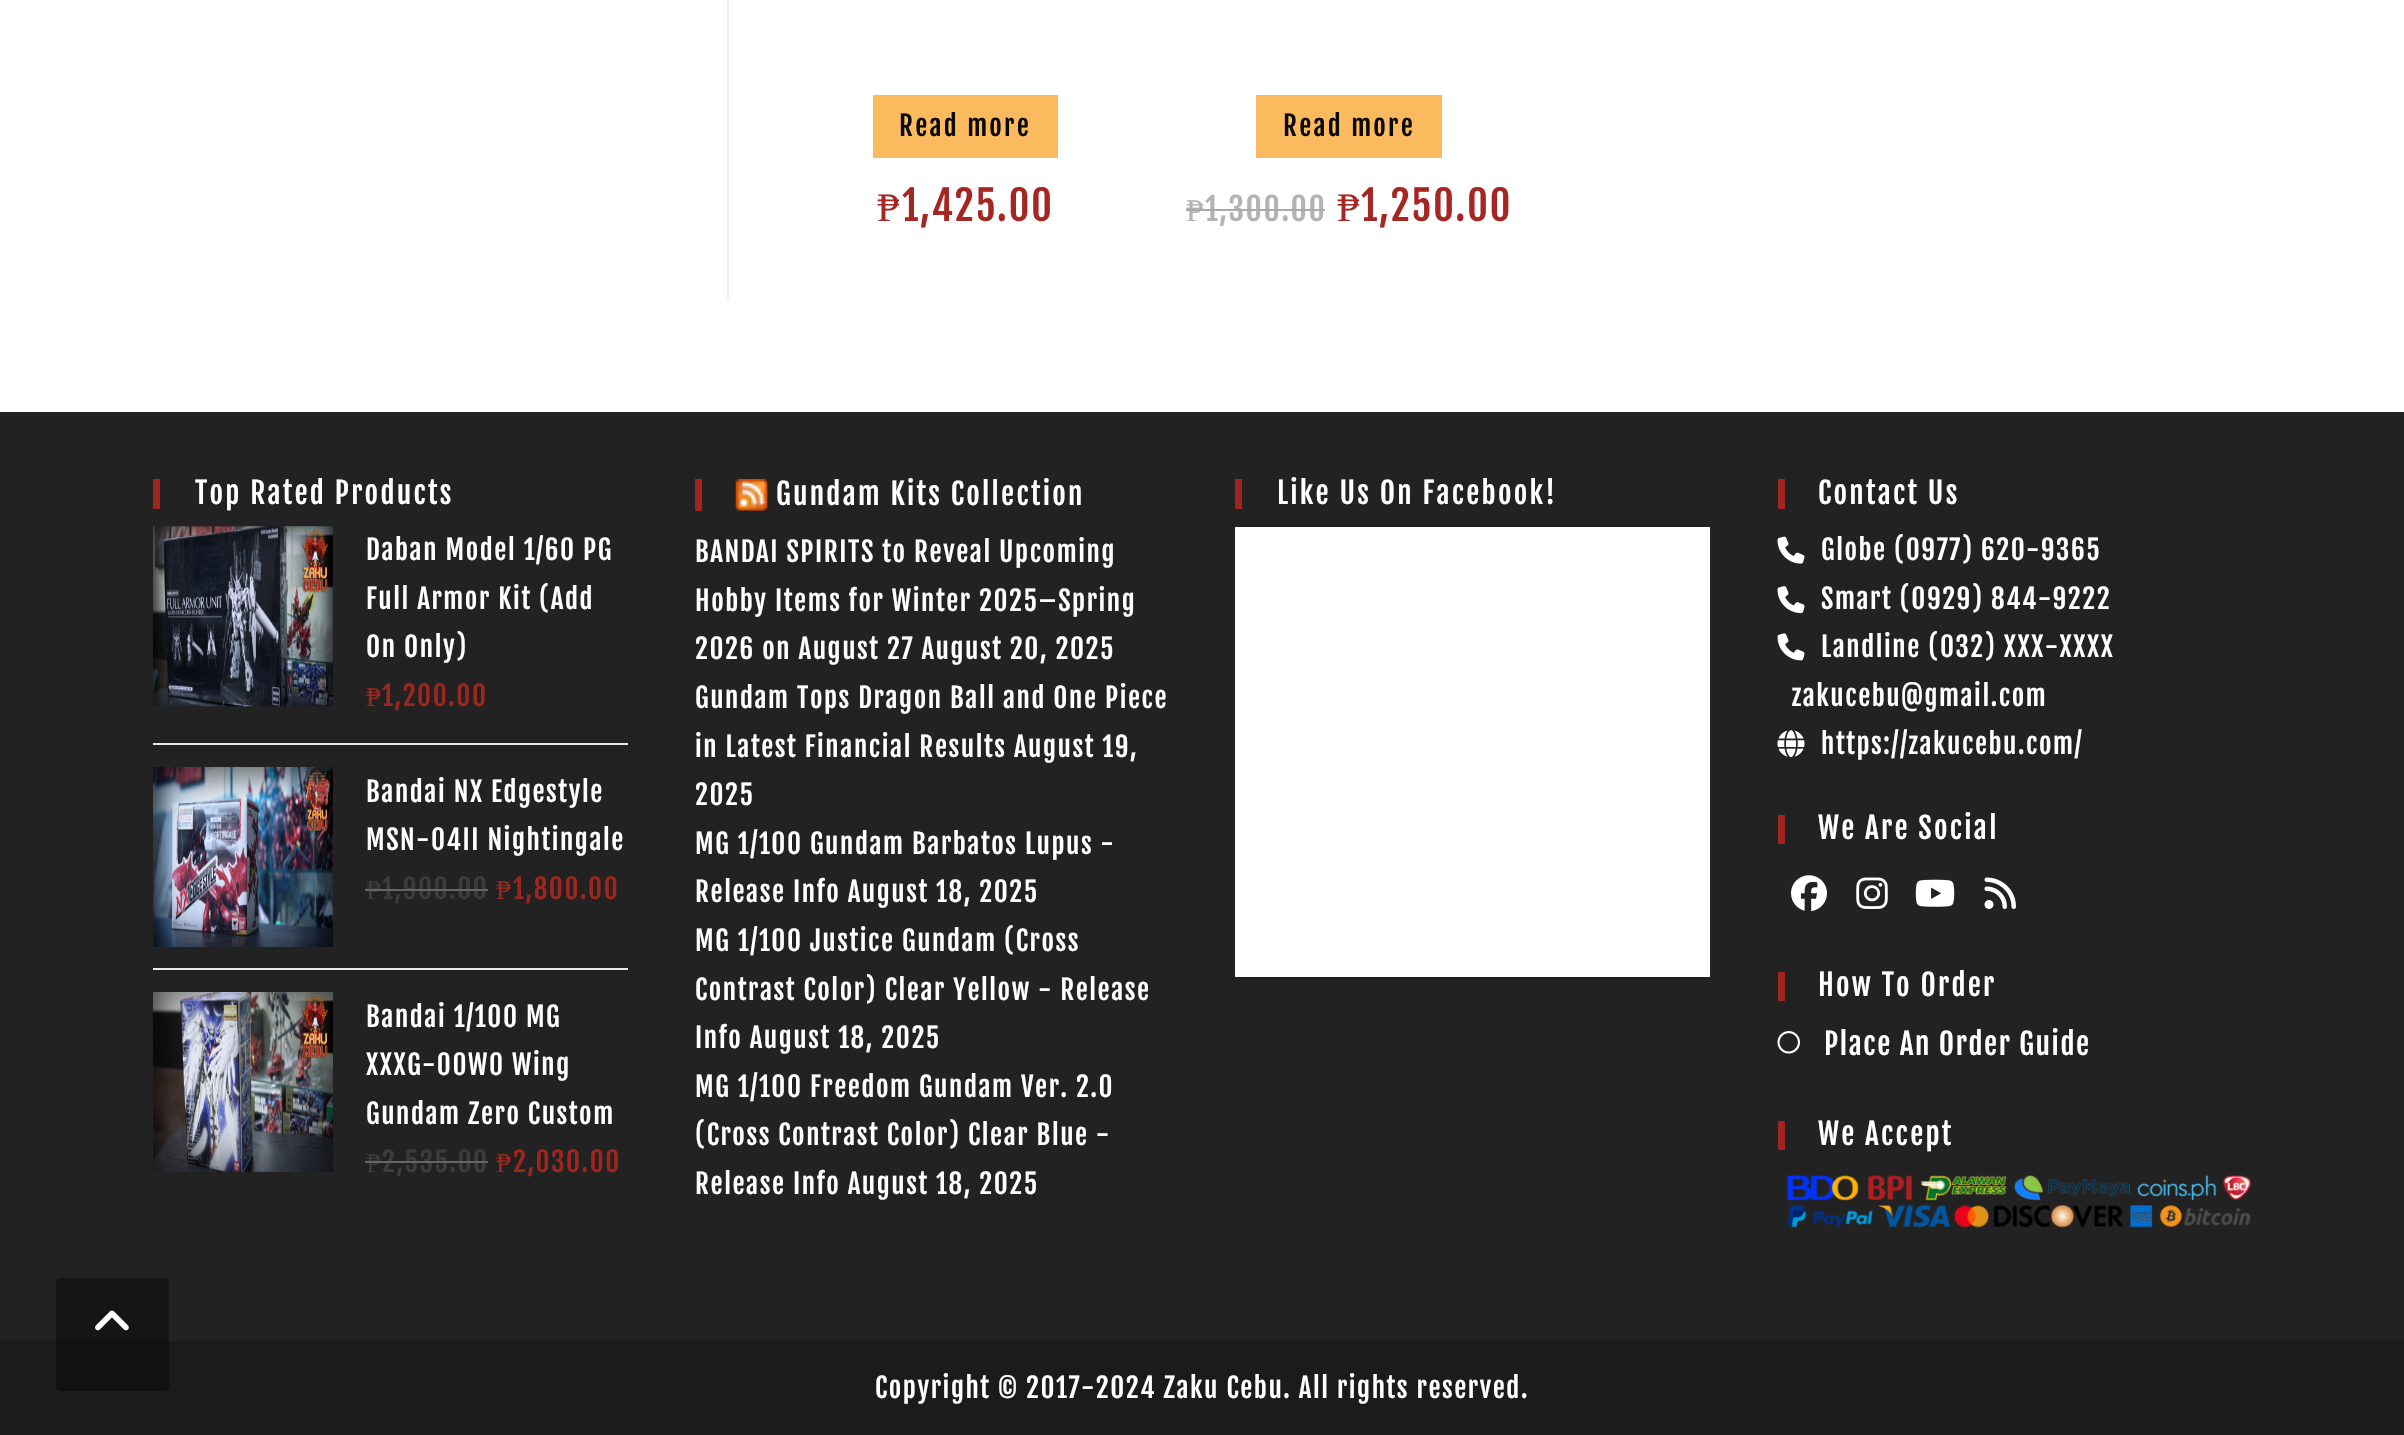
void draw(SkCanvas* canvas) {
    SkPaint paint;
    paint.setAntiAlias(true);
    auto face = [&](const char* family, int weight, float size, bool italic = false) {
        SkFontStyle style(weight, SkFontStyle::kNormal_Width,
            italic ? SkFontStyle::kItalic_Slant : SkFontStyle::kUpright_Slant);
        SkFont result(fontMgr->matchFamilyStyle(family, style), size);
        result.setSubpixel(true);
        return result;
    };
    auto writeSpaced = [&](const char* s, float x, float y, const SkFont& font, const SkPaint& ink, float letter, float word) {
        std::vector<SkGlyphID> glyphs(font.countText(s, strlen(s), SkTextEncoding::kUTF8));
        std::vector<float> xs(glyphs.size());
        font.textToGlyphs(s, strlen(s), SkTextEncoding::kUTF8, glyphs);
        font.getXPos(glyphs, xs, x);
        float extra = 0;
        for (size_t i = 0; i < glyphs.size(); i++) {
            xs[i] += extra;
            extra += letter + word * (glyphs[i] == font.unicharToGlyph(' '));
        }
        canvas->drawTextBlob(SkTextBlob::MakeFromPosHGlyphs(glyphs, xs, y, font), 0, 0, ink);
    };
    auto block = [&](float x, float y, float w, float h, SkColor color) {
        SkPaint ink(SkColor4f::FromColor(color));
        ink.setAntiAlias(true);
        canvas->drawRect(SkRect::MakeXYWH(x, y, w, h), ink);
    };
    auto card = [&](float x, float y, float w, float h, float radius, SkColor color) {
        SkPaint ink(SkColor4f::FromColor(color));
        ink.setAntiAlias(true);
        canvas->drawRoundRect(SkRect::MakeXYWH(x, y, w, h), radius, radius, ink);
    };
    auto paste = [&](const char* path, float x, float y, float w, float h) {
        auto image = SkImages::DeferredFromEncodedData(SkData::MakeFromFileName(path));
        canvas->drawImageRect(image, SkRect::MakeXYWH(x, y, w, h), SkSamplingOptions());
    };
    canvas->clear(SK_ColorWHITE);
    block(0, 412, 2404, 929, SkColorSetRGB(34, 34, 34));
    block(0, 1341, 2404, 94, SkColorSetRGB(27, 27, 27));
    card(56, 1278, 113, 113, 5, SkColorSetARGB(102, 0, 0, 0));
    paste("pic1.png", 95, 1310, 34, 21);
    block(727, 0, 2, 299, SkColorSetRGB(241, 241, 241));
    block(873, 95, 185, 63, SkColorSetRGB(251, 186, 94));
    auto kFont1 = face("Fjalla One", 400, 27);
    paint.setColor(SkColorSetRGB(10, 8, 8));
    writeSpaced("Read more", 899, 136, kFont1, paint, 2.25f, 0);
    auto kFont2 = face("Liberation Serif", 400, 40.5f);
    paint.setColor(SkColorSetRGB(165, 39, 36));
    writeSpaced("₱", 877, 221, kFont2, paint, 1.57f, 0);
    auto kFont3 = face("Fjalla One", 400, 40.5f);
    writeSpaced("1,425.00", 902, 221, kFont3, paint, 1.57f, 0);
    block(1256, 95, 186, 63, SkColorSetRGB(251, 186, 94));
    paint.setColor(SkColorSetRGB(10, 8, 8));
    writeSpaced("Read more", 1283, 136, kFont1, paint, 2.25f, 0);
    auto kFont4 = face("Liberation Serif", 400, 31.5f);
    paint.setColor(SkColorSetRGB(179, 179, 179));
    writeSpaced("₱", 1186, 221, kFont4, paint, 1.57f, 0);
    block(1186, 209, 18, 2, SkColorSetRGB(170, 170, 170));
    auto kFont5 = face("Fjalla One", 400, 31.5f);
    writeSpaced("1,300.00", 1205, 221, kFont5, paint, 1.57f, 0);
    block(1204, 209, 121, 2, SkColorSetRGB(170, 170, 170));
    paint.setColor(SkColorSetRGB(165, 39, 36));
    writeSpaced("₱", 1337, 221, kFont2, paint, 1.57f, 0);
    writeSpaced("1,250.00", 1361, 221, kFont3, paint, 1.57f, 0);
    block(153, 479, 7, 30, SkColorSetRGB(159, 38, 30));
    auto kFont6 = face("Fjalla One", 400, 29.25f);
    paint.setColor(SK_ColorWHITE);
    writeSpaced("Top Rated Products", 195, 504, kFont6, paint, 2.25f, 0);
    block(153, 743, 475, 2, SkColorSetRGB(234, 234, 234));
    paste("pic2.png", 153, 526, 180, 181);
    writeSpaced("Daban Model 1/60 PG", 366, 560, kFont1, paint, 1.57f, 0);
    writeSpaced("Full Armor Kit (Add", 366, 609, kFont1, paint, 1.57f, 0);
    writeSpaced("On Only)", 366, 657, kFont1, paint, 1.57f, 0);
    auto kFont7 = face("Liberation Serif", 400, 27);
    paint.setColor(SkColorSetRGB(159, 38, 30));
    writeSpaced("₱", 366, 706, kFont7, paint, 1.57f, 0);
    writeSpaced("1,200.00", 382, 706, kFont1, paint, 1.57f, 0);
    block(153, 968, 475, 2, SkColorSetRGB(234, 234, 234));
    paste("pic3.png", 153, 767, 180, 180);
    paint.setColor(SK_ColorWHITE);
    writeSpaced("Bandai NX Edgestyle", 366, 802, kFont1, paint, 1.57f, 0);
    writeSpaced("MSN-04II Nightingale", 366, 850, kFont1, paint, 1.57f, 0);
    paint.setColor(SkColorSetRGB(60, 60, 60));
    writeSpaced("₱", 366, 899, kFont7, paint, 1.57f, 0);
    block(365, 889, 18, 2, SkColorSetRGB(102, 102, 102));
    writeSpaced("1,900.00", 382, 899, kFont1, paint, 1.57f, 0);
    block(383, 889, 105, 2, SkColorSetRGB(102, 102, 102));
    paint.setColor(SkColorSetRGB(159, 38, 30));
    writeSpaced("₱", 496, 899, kFont7, paint, 1.57f, 0);
    writeSpaced("1,800.00", 513, 899, kFont1, paint, 1.57f, 0);
    paste("pic4.png", 153, 992, 180, 180);
    paint.setColor(SK_ColorWHITE);
    writeSpaced("Bandai 1/100 MG", 366, 1027, kFont1, paint, 1.57f, 0);
    writeSpaced("XXXG-00W0 Wing", 366, 1075, kFont1, paint, 1.57f, 0);
    writeSpaced("Gundam Zero Custom", 366, 1124, kFont1, paint, 1.57f, 0);
    paint.setColor(SkColorSetRGB(60, 60, 60));
    writeSpaced("₱", 366, 1172, kFont7, paint, 1.57f, 0);
    block(365, 1161, 18, 2, SkColorSetRGB(102, 102, 102));
    writeSpaced("2,535.00", 382, 1172, kFont1, paint, 1.57f, 0);
    block(383, 1161, 105, 2, SkColorSetRGB(102, 102, 102));
    paint.setColor(SkColorSetRGB(159, 38, 30));
    writeSpaced("₱", 496, 1172, kFont7, paint, 1.57f, 0);
    writeSpaced("2,030.00", 513, 1172, kFont1, paint, 1.57f, 0);
    block(695, 479, 7, 32, SkColorSetRGB(159, 38, 30));
    paste("pic5.png", 735, 479, 33, 32);
    paint.setColor(SK_ColorWHITE);
    writeSpaced("Gundam Kits Collection", 776, 505, kFont6, paint, 2.25f, 0);
    writeSpaced("BANDAI SPIRITS to Reveal Upcoming", 695, 562, kFont1, paint, 1.57f, 0);
    writeSpaced("Hobby Items for Winter 2025–Spring", 695, 611, kFont1, paint, 1.57f, 0);
    writeSpaced("2026 on August 27 August 20, 2025", 695, 659, kFont1, paint, 1.57f, 0);
    writeSpaced("Gundam Tops Dragon Ball and One Piece", 695, 708, kFont1, paint, 1.57f, 0);
    writeSpaced("in Latest Financial Results August 19,", 695, 757, kFont1, paint, 1.57f, 0);
    writeSpaced("2025", 695, 805, kFont1, paint, 1.57f, 0);
    writeSpaced("MG 1/100 Gundam Barbatos Lupus -", 695, 854, kFont1, paint, 1.57f, 0);
    writeSpaced("Release Info August 18, 2025", 695, 902, kFont1, paint, 1.57f, 0);
    writeSpaced("MG 1/100 Justice Gundam (Cross", 695, 951, kFont1, paint, 1.57f, 0);
    writeSpaced("Contrast Color) Clear Yellow - Release", 695, 1000, kFont1, paint, 1.57f, 0);
    writeSpaced("Info August 18, 2025", 695, 1048, kFont1, paint, 1.57f, 0);
    writeSpaced("MG 1/100 Freedom Gundam Ver. 2.0", 695, 1097, kFont1, paint, 1.57f, 0);
    writeSpaced("(Cross Contrast Color) Clear Blue -", 695, 1145, kFont1, paint, 1.57f, 0);
    writeSpaced("Release Info August 18, 2025", 695, 1194, kFont1, paint, 1.57f, 0);
    block(1235, 479, 7, 30, SkColorSetRGB(159, 38, 30));
    writeSpaced("Like Us On Facebook!", 1277, 504, kFont6, paint, 2.25f, 0);
    block(1235, 527, 475, 450, SK_ColorWHITE);
    block(1778, 479, 7, 30, SkColorSetRGB(159, 38, 30));
    writeSpaced("Contact Us", 1818, 504, kFont6, paint, 2.25f, 0);
    paste("pic6.png", 1777, 536, 28, 28);
    writeSpaced("Globe (0977) 620-9365", 1821, 560, kFont1, paint, 1.57f, 0);
    paste("pic7.png", 1777, 586, 28, 28);
    writeSpaced("Smart (0929) 844-9222", 1821, 609, kFont1, paint, 1.57f, 0);
    paste("pic8.png", 1777, 633, 28, 28);
    writeSpaced("Landline (032) XXX-XXXX", 1821, 657, kFont1, paint, 1.57f, 0);
    writeSpaced("zakucebu@gmail.com", 1792, 706, kFont1, paint, 1.57f, 0);
    paste("pic9.png", 1777, 730, 28, 28);
    writeSpaced("https://zakucebu.com/", 1821, 754, kFont1, paint, 1.57f, 0);
    block(1778, 815, 7, 29, SkColorSetRGB(159, 38, 30));
    writeSpaced("We Are Social", 1818, 839, kFont6, paint, 2.25f, 0);
    paste("pic10.png", 1791, 875, 36, 37);
    paste("pic11.png", 1856, 877, 32, 32);
    paste("pic12.png", 1915, 879, 40, 28);
    paste("pic13.png", 1984, 877, 32, 32);
    block(1778, 972, 7, 29, SkColorSetRGB(159, 38, 30));
    writeSpaced("How To Order", 1818, 996, kFont6, paint, 2.25f, 0);
    paste("pic14.png", 1777, 1031, 23, 23);
    writeSpaced("Place An Order Guide", 1824, 1055, kFont6, paint, 1.57f, 0);
    block(1778, 1121, 7, 29, SkColorSetRGB(159, 38, 30));
    writeSpaced("We Accept", 1818, 1145, kFont6, paint, 2.25f, 0);
    paste("pic15.png", 1786, 1175, 465, 53);
    writeSpaced("Copyright © 2017-2024 Zaku Cebu. All rights reserved.", 875, 1398, kFont1, paint, 1.57f, 0);
}
